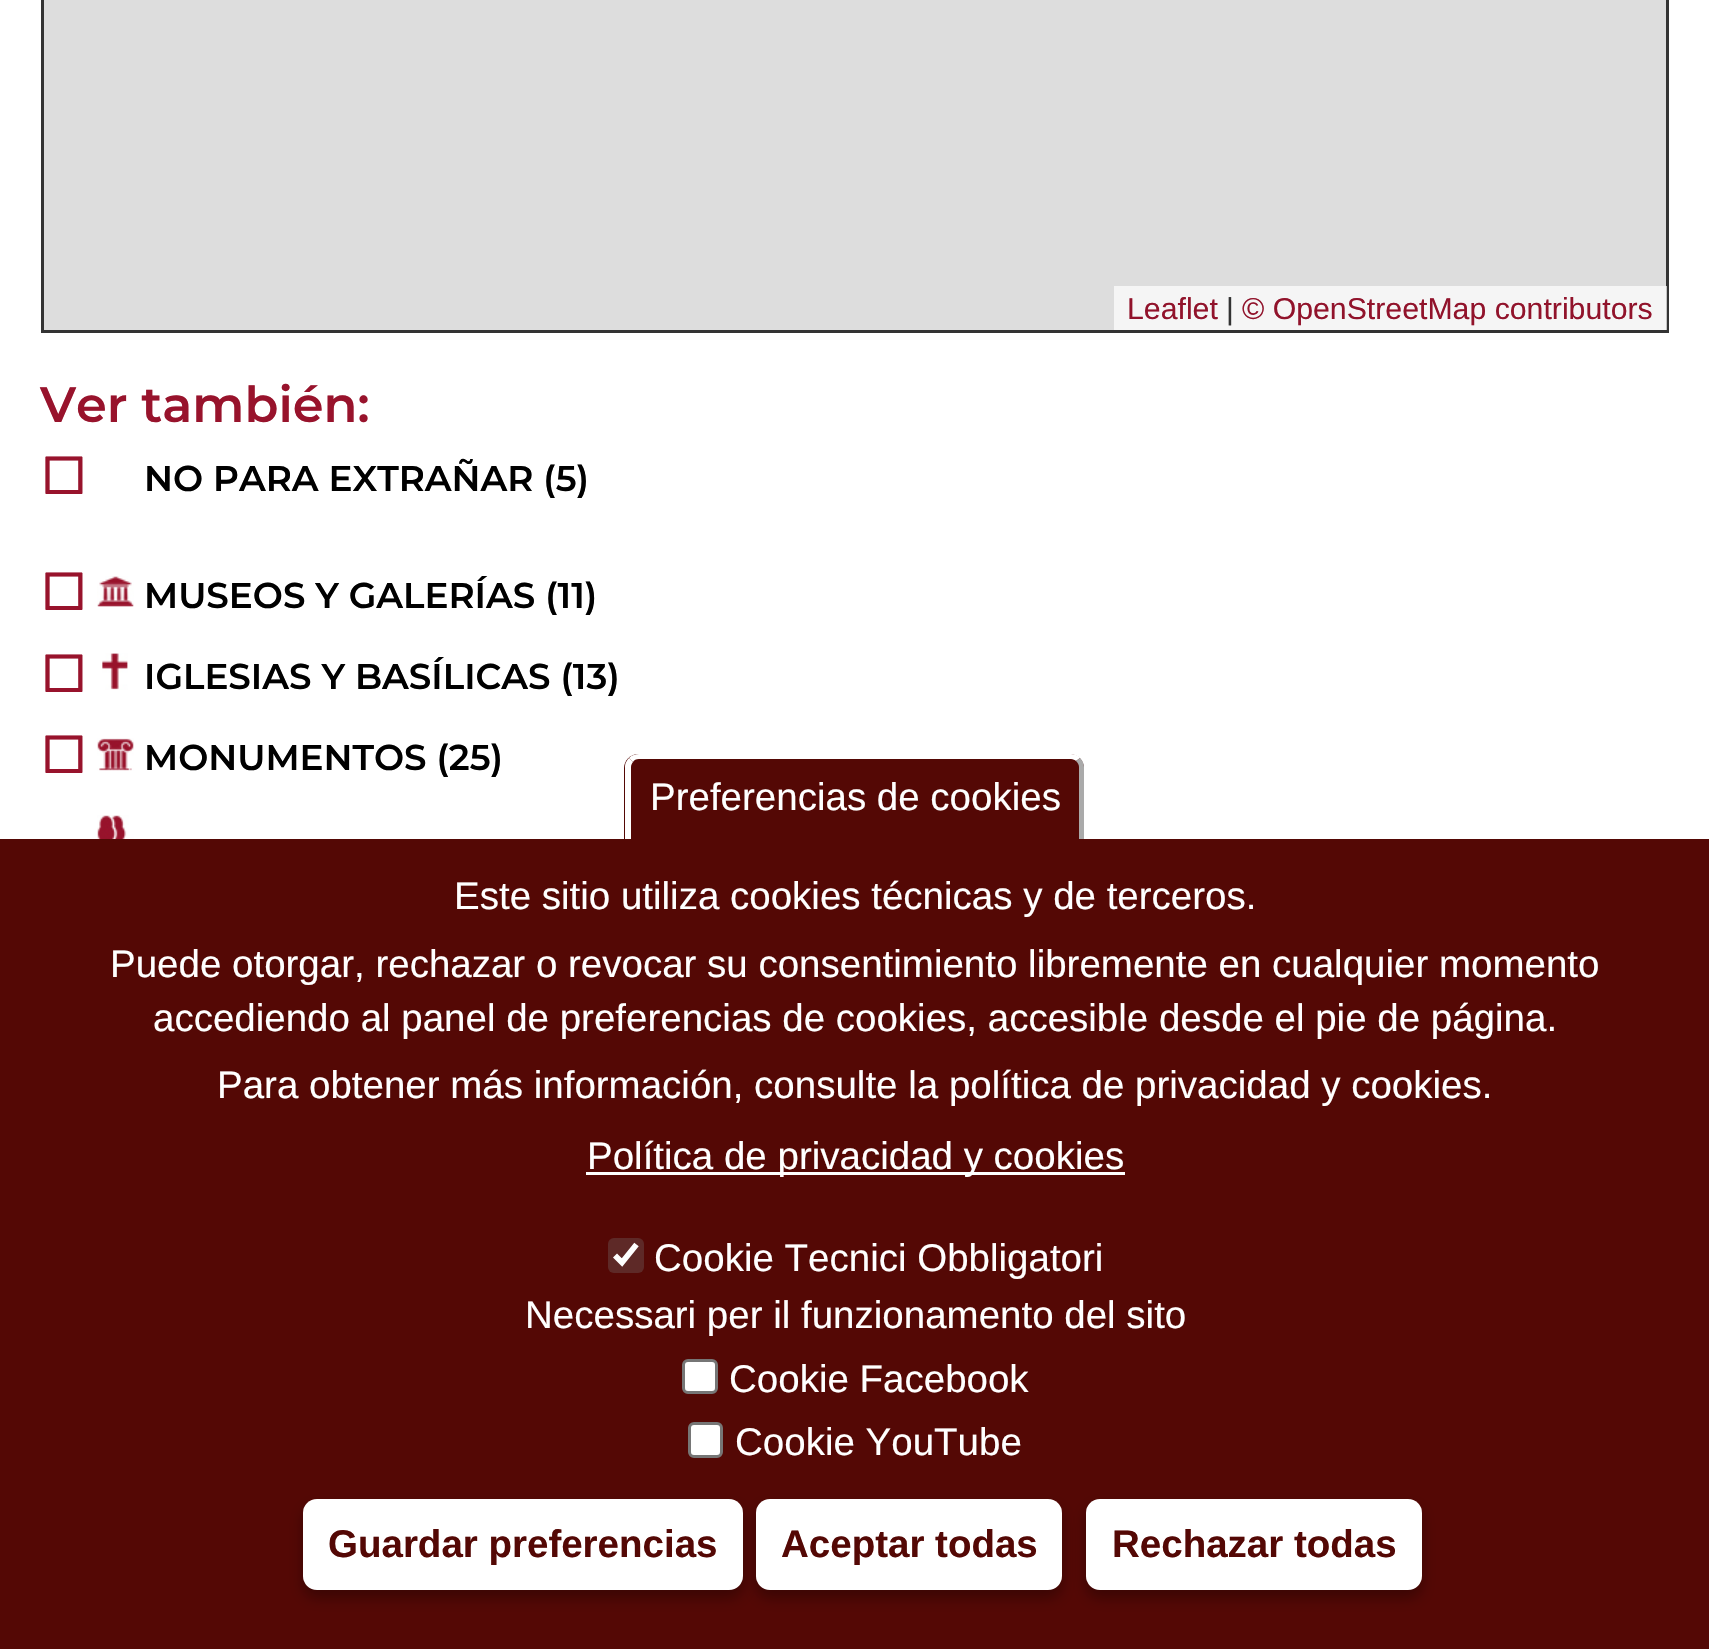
void draw(SkCanvas* canvas) {
    SkPaint paint;
    paint.setAntiAlias(true);
    auto face = [&](const char* family, int weight, float size, bool italic = false) {
        SkFontStyle style(weight, SkFontStyle::kNormal_Width,
            italic ? SkFontStyle::kItalic_Slant : SkFontStyle::kUpright_Slant);
        SkFont result(fontMgr->matchFamilyStyle(family, style), size);
        result.setSubpixel(true);
        return result;
    };
    auto write = [&](const char* s, float x, float y, const SkFont& font, SkColor color) {
        SkPaint ink(SkColor4f::FromColor(color));
        ink.setAntiAlias(true);
        canvas->drawString(s, x, y, font, ink);
    };
    auto block = [&](float x, float y, float w, float h, SkColor color) {
        SkPaint ink(SkColor4f::FromColor(color));
        ink.setAntiAlias(true);
        canvas->drawRect(SkRect::MakeXYWH(x, y, w, h), ink);
    };
    auto card = [&](float x, float y, float w, float h, float radius, SkColor color) {
        SkPaint ink(SkColor4f::FromColor(color));
        ink.setAntiAlias(true);
        canvas->drawRoundRect(SkRect::MakeXYWH(x, y, w, h), radius, radius, ink);
    };
    auto paste = [&](const char* path, float x, float y, float w, float h) {
        auto image = SkImages::DeferredFromEncodedData(SkData::MakeFromFileName(path));
        canvas->drawImageRect(image, SkRect::MakeXYWH(x, y, w, h), SkSamplingOptions());
    };
    canvas->clear(SK_ColorWHITE);
    paint.setColor(SkColorSetRGB(221, 221, 221));
    canvas->drawRect(SkRect::MakeXYWH(42.5f, -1.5f, 1625, 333), paint);
    paint.setStyle(SkPaint::kStroke_Style);
    paint.setStrokeWidth(3);
    paint.setColor(SkColorSetRGB(51, 51, 51));
    canvas->drawRect(SkRect::MakeXYWH(42.5f, -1.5f, 1625, 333), paint);
    block(1114, 286, 553, 44, SkColorSetARGB(179, 255, 255, 255));
    auto kFont1 = face("Liberation Sans", 400, 30.25f);
    write("Leaflet", 1127, 319, kFont1, SkColorSetRGB(145, 19, 43));
    write("|", 1226, 319, kFont1, SkColorSetRGB(51, 51, 51));
    write("© OpenStreetMap contributors", 1242, 319, kFont1, SkColorSetRGB(145, 19, 43));
    auto kFont2 = face("Montserrat", 600, 49.5f);
    write("Ver también:", 40, 422, kFont2, SkColorSetRGB(152, 19, 44));
    auto kFont3 = face("DejaVu Sans", 700, 49.5f);
    write("☐", 41, 494, kFont3, SkColorSetRGB(152, 19, 44));
    auto kFont4 = face("Montserrat", 600, 35.75f);
    write("NO PARA EXTRAÑAR (5)", 144, 491, kFont4, SK_ColorBLACK);
    write("☐", 41, 610, kFont3, SkColorSetRGB(152, 19, 44));
    paste("pic1.png", 97, 576, 37, 31);
    write("MUSEOS Y GALERÍAS (11)", 144, 608, kFont4, SK_ColorBLACK);
    write("☐", 41, 692, kFont3, SkColorSetRGB(152, 19, 44));
    paste("pic2.png", 102, 653, 26, 37);
    write("IGLESIAS Y BASÍLICAS (13)", 144, 689, kFont4, SK_ColorBLACK);
    write("☐", 41, 773, kFont3, SkColorSetRGB(152, 19, 44));
    paste("pic3.png", 97, 738, 37, 33);
    write("MONUMENTOS (25)", 144, 770, kFont4, SK_ColorBLACK);
    paste("pic4.png", 97, 815, 37, 24);
    block(0, 839, 1709, 810, SkColorSetRGB(84, 8, 5));
    paint.setStyle(SkPaint::kFill_Style);
    paint.setColor(SkColorSetRGB(84, 8, 5));
    canvas->drawPath(SkPathBuilder().moveTo(638, 754).lineTo(1070, 754).cubicTo(1077.5f, 754, 1084, 760.5f, 1084, 768).lineTo(1084, 839).lineTo(624, 839).lineTo(624, 768).cubicTo(624, 760.5f, 630.5f, 754, 638, 754).close().detach(), paint);
    paint.setColor(SK_ColorWHITE);
    canvas->drawPath(SkPathBuilder().moveTo(639, 754).lineTo(1071, 754).cubicTo(1074, 754, 1078, 755, 1080, 758).lineTo(1076, 761).cubicTo(1075, 760, 1073, 759, 1071, 759).lineTo(639, 759).cubicTo(636, 759, 634, 760, 633, 762).lineTo(629, 758).cubicTo(632, 755, 635, 754, 639, 754).close().detach(), paint);
    paint.setColor(SkColorSetRGB(170, 170, 170));
    canvas->drawPath(SkPathBuilder().moveTo(1079, 839).lineTo(1079, 767).cubicTo(1079, 765, 1078, 763, 1076, 761).lineTo(1080, 758).cubicTo(1082, 760, 1084, 763, 1084, 767).lineTo(1084, 839).close().detach(), paint);
    paint.setColor(SK_ColorWHITE);
    canvas->drawPath(SkPathBuilder().moveTo(625, 839).lineTo(631, 839).lineTo(631, 767).cubicTo(631, 765, 632, 763, 633, 762).lineTo(629, 758).cubicTo(627, 760, 625, 763, 625, 766).close().detach(), paint);
    auto kFont5 = face("Liberation Sans", 400, 38.5f);
    write("Preferencias de cookies", 650, 810, kFont5, SK_ColorWHITE);
    write("Este sitio utiliza cookies técnicas y de terceros.", 454, 909, kFont5, SK_ColorWHITE);
    write("Puede otorgar, rechazar o revocar su consentimiento libremente en cualquier momento", 110, 977, kFont5, SK_ColorWHITE);
    write("accediendo al panel de preferencias de cookies, accesible desde el pie de página.", 153, 1031, kFont5, SK_ColorWHITE);
    write("Para obtener más información, consulte la política de privacidad y cookies.", 217, 1098, kFont5, SK_ColorWHITE);
    block(586, 1172, 539, 3, SK_ColorWHITE);
    write("Política de privacidad y cookies", 587, 1169, kFont5, SK_ColorWHITE);
    card(608, 1238, 36, 35, 6, SkColorSetRGB(94, 41, 39));
    paint.setStyle(SkPaint::kStroke_Style);
    paint.setStrokeWidth(5.7f);
    canvas->drawPath(SkPathBuilder().moveTo(615, 1255.5f).lineTo(622, 1262.5f).lineTo(636.5f, 1244.5f).detach(), paint);
    write("Cookie Tecnici Obbligatori", 654, 1271, kFont5, SK_ColorWHITE);
    write("Necessari per il funzionamento del sito", 525, 1328, kFont5, SK_ColorWHITE);
    paint.setStyle(SkPaint::kFill_Style);
    canvas->drawRoundRect(SkRect::MakeXYWH(683.5f, 1360.5f, 33, 32), 4.5f, 4.5f, paint);
    paint.setStyle(SkPaint::kStroke_Style);
    paint.setStrokeWidth(3);
    paint.setColor(SkColorSetRGB(118, 118, 118));
    canvas->drawRoundRect(SkRect::MakeXYWH(683.5f, 1360.5f, 33, 32), 4.5f, 4.5f, paint);
    write("Cookie Facebook", 729, 1392, kFont5, SK_ColorWHITE);
    paint.setStyle(SkPaint::kFill_Style);
    paint.setColor(SK_ColorWHITE);
    canvas->drawRoundRect(SkRect::MakeXYWH(689.5f, 1423.5f, 32, 33), 4.5f, 4.5f, paint);
    paint.setStyle(SkPaint::kStroke_Style);
    paint.setColor(SkColorSetRGB(118, 118, 118));
    canvas->drawRoundRect(SkRect::MakeXYWH(689.5f, 1423.5f, 32, 33), 4.5f, 4.5f, paint);
    write("Cookie YouTube", 735, 1455, kFont5, SK_ColorWHITE);
    paint.setStyle(SkPaint::kFill_Style);
    paint.setColor(SkColorSetARGB(77, 0, 0, 0));
    paint.setMaskFilter(SkMaskFilter::MakeBlur(kNormal_SkBlurStyle, 7));
    canvas->drawRoundRect(SkRect::MakeXYWH(303, 1507, 440, 91), 14, 14, paint);
    paint.setMaskFilter(nullptr);
    card(303, 1499, 440, 91, 14, SK_ColorWHITE);
    auto kFont6 = face("Liberation Sans", 700, 38.5f);
    write("Guardar preferencias", 328, 1557, kFont6, SkColorSetRGB(84, 8, 5));
    paint.setMaskFilter(SkMaskFilter::MakeBlur(kNormal_SkBlurStyle, 7));
    canvas->drawRoundRect(SkRect::MakeXYWH(756, 1507, 306, 91), 14, 14, paint);
    paint.setMaskFilter(nullptr);
    card(756, 1499, 306, 91, 14, SK_ColorWHITE);
    write("Aceptar todas", 781, 1557, kFont6, SkColorSetRGB(84, 8, 5));
    paint.setMaskFilter(SkMaskFilter::MakeBlur(kNormal_SkBlurStyle, 7));
    canvas->drawRoundRect(SkRect::MakeXYWH(1086, 1507, 336, 91), 14, 14, paint);
    paint.setMaskFilter(nullptr);
    card(1086, 1499, 336, 91, 14, SK_ColorWHITE);
    write("Rechazar todas", 1112, 1557, kFont6, SkColorSetRGB(84, 8, 5));
}
